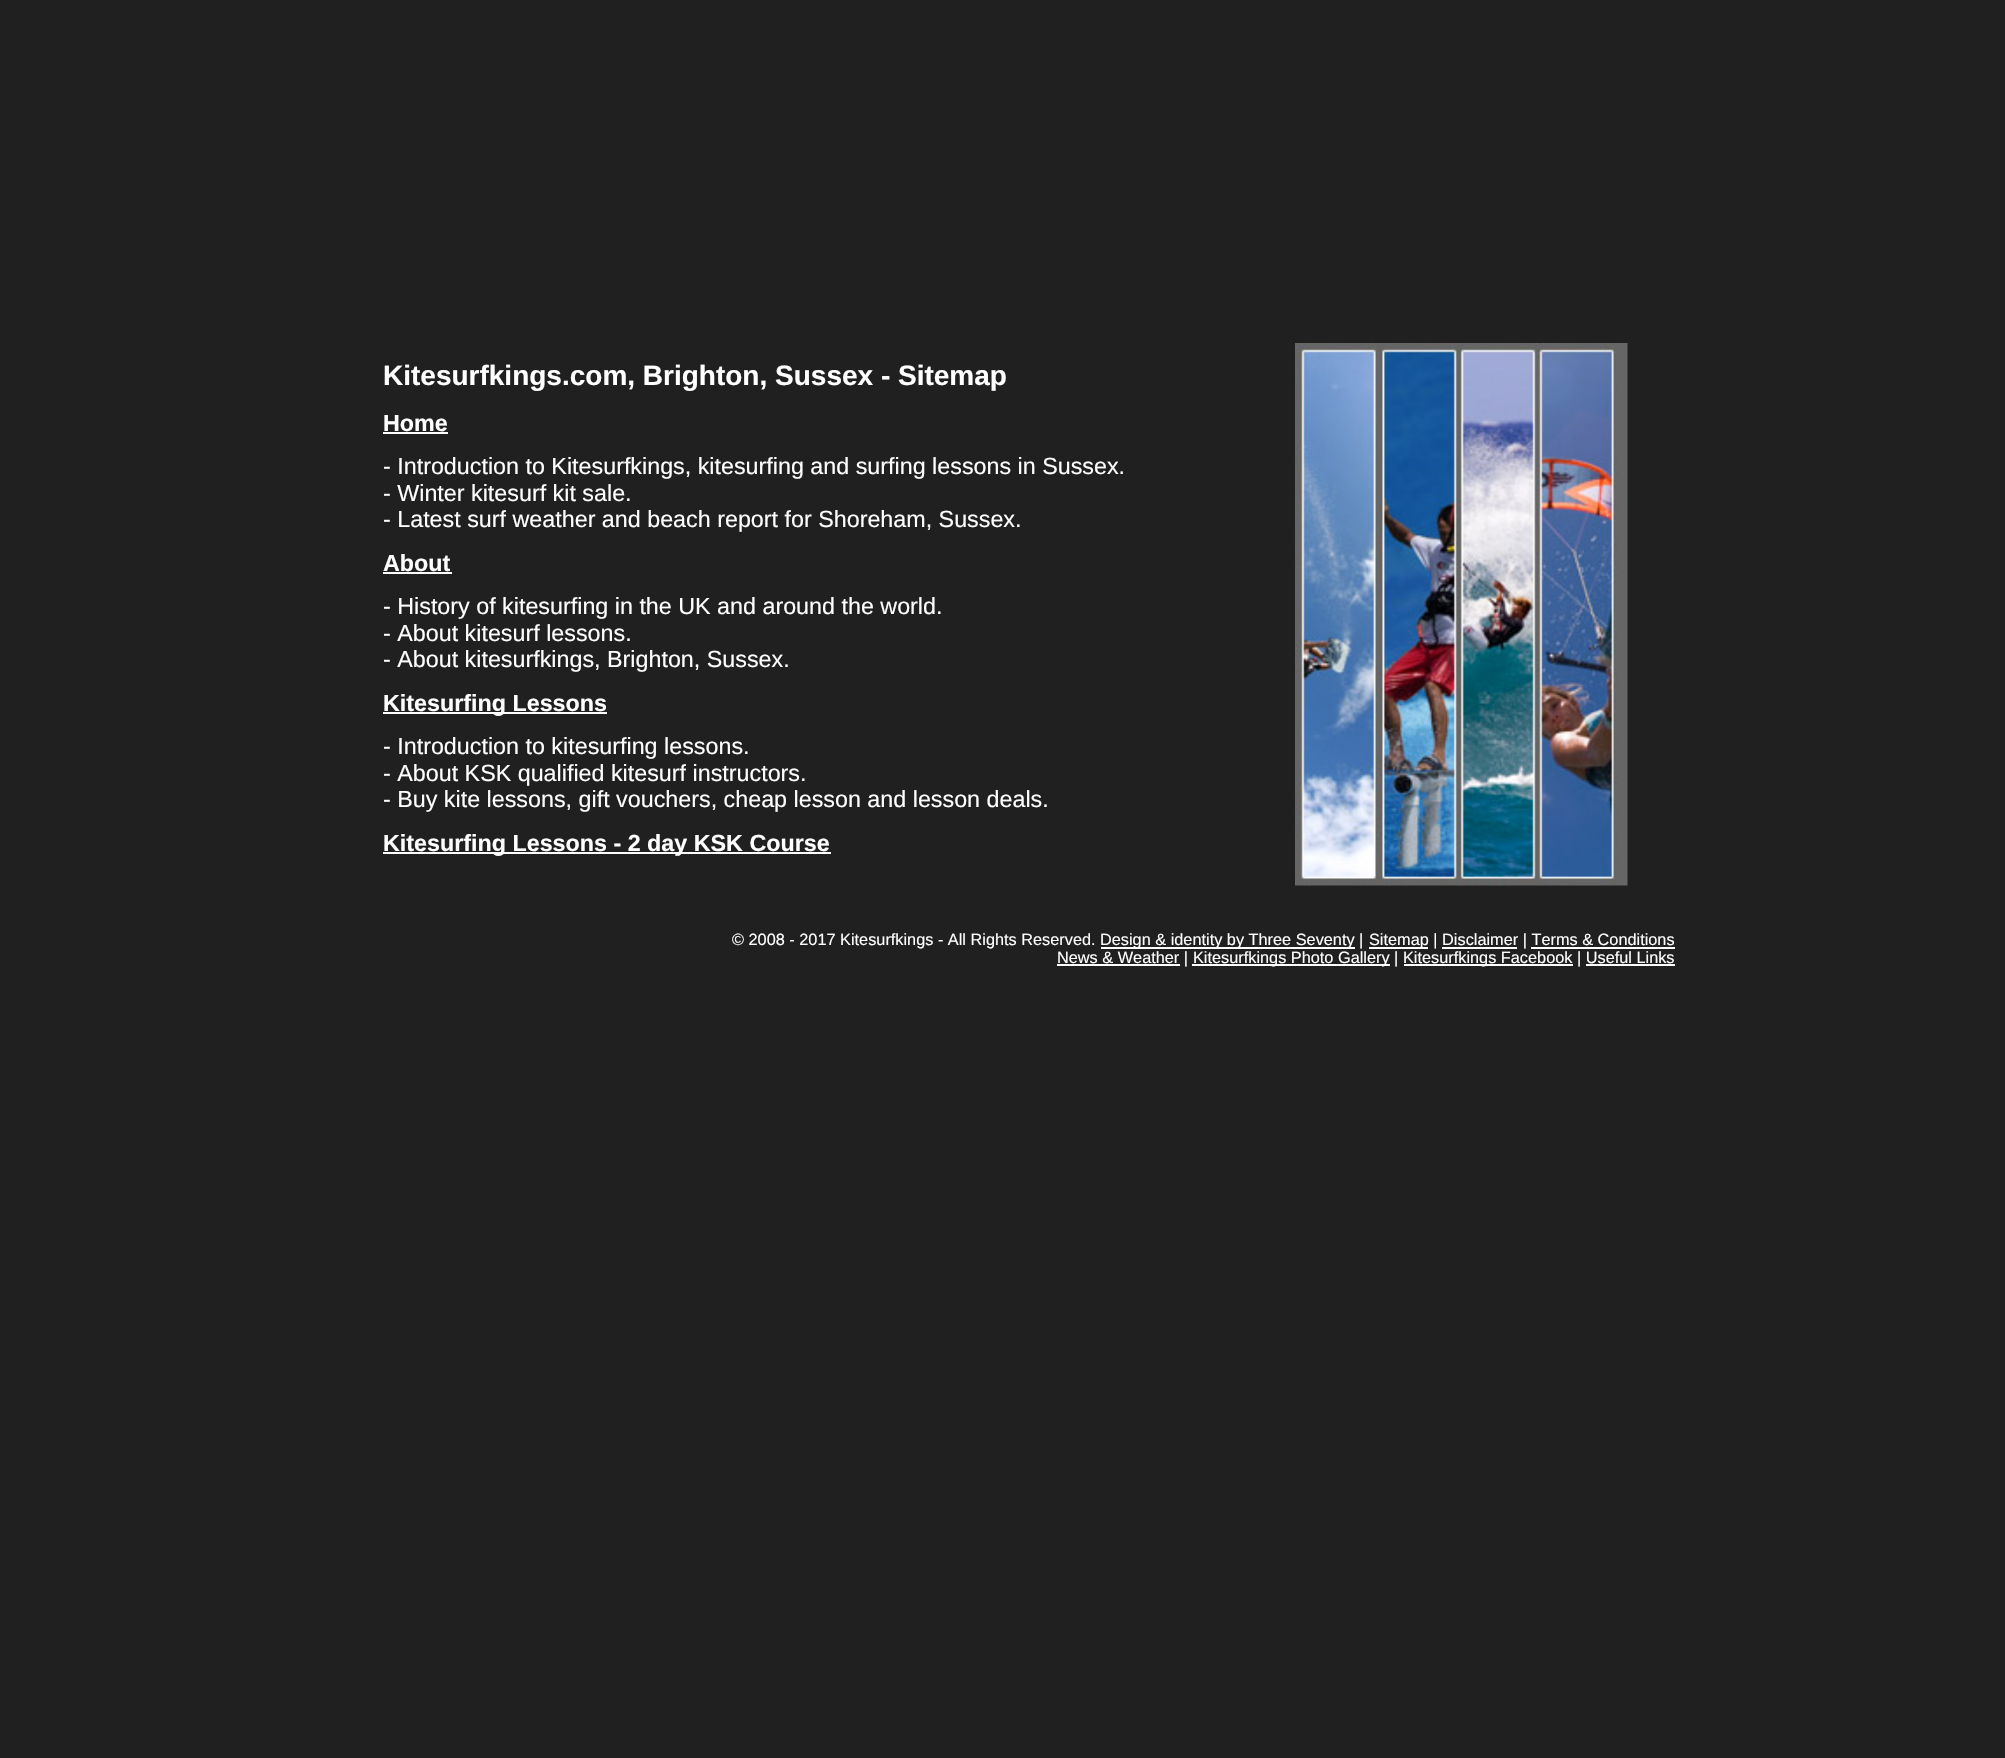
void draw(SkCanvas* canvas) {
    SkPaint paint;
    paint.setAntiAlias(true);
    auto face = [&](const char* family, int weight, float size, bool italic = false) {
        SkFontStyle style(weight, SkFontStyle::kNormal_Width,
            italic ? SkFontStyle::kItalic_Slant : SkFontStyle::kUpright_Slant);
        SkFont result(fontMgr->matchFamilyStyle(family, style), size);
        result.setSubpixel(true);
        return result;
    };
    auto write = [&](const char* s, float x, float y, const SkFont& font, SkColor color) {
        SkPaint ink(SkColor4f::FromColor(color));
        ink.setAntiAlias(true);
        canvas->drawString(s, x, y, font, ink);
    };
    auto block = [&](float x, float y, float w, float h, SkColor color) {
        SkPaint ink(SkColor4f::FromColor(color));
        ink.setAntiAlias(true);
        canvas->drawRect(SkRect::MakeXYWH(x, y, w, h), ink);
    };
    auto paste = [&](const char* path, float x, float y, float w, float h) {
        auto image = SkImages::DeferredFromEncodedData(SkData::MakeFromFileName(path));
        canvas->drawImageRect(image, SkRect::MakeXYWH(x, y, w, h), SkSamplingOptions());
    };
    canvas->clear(SkColorSetRGB(32, 32, 32));
    auto kFont1 = face("Liberation Sans", 700, 28);
    write("Kitesurfkings.com, Brighton, Sussex - Sitemap", 383, 385, kFont1, SK_ColorWHITE);
    auto kFont2 = face("Liberation Sans", 700, 23.3f);
    write("Home", 383, 431, kFont2, SK_ColorWHITE);
    block(383, 432, 65, 2, SK_ColorWHITE);
    auto kFont3 = face("Liberation Sans", 400, 23.3f);
    write("- Introduction to Kitesurfkings, kitesurfing and surfing lessons in Sussex.", 383, 474, kFont3, SK_ColorWHITE);
    write("- Winter kitesurf kit sale.", 383, 501, kFont3, SK_ColorWHITE);
    write("- Latest surf weather and beach report for Shoreham, Sussex.", 383, 527, kFont3, SK_ColorWHITE);
    write("About", 383, 571, kFont2, SK_ColorWHITE);
    block(383, 572, 69, 2, SK_ColorWHITE);
    write("- History of kitesurfing in the UK and around the world.", 383, 614, kFont3, SK_ColorWHITE);
    write("- About kitesurf lessons.", 383, 641, kFont3, SK_ColorWHITE);
    write("- About kitesurfkings, Brighton, Sussex.", 383, 667, kFont3, SK_ColorWHITE);
    block(383, 712, 224, 2, SK_ColorWHITE);
    write("Kitesurfing Lessons", 383, 711, kFont2, SK_ColorWHITE);
    write("- Introduction to kitesurfing lessons.", 383, 754, kFont3, SK_ColorWHITE);
    write("- About KSK qualified kitesurf instructors.", 383, 781, kFont3, SK_ColorWHITE);
    write("- Buy kite lessons, gift vouchers, cheap lesson and lesson deals.", 383, 807, kFont3, SK_ColorWHITE);
    block(383, 852, 448, 2, SK_ColorWHITE);
    write("Kitesurfing Lessons - 2 day KSK Course", 383, 851, kFont2, SK_ColorWHITE);
    paste("pic1.png", 1295, 343, 333, 543);
    auto kFont4 = face("Liberation Sans", 400, 16.3f);
    write("© 2008 - 2017 Kitesurfkings - All Rights Reserved.", 732, 945, kFont4, SK_ColorWHITE);
    block(1101, 947, 254, 2, SK_ColorWHITE);
    write("Design & identity by Three Seventy |", 1100, 945, kFont4, SK_ColorWHITE);
    block(1369, 947, 59, 2, SK_ColorWHITE);
    write("Sitemap | Disclaimer | Terms & Conditions", 1369, 945, kFont4, SK_ColorWHITE);
    block(1442, 947, 75, 2, SK_ColorWHITE);
    block(1531, 947, 144, 2, SK_ColorWHITE);
    block(1057, 964, 123, 2, SK_ColorWHITE);
    write("News & Weather |", 1057, 963, kFont4, SK_ColorWHITE);
    block(1192, 964, 198, 2, SK_ColorWHITE);
    write("Kitesurfkings Photo Gallery |", 1193, 963, kFont4, SK_ColorWHITE);
    block(1404, 964, 169, 2, SK_ColorWHITE);
    write("Kitesurfkings Facebook | Useful Links", 1403, 963, kFont4, SK_ColorWHITE);
    block(1586, 964, 89, 2, SK_ColorWHITE);
}
